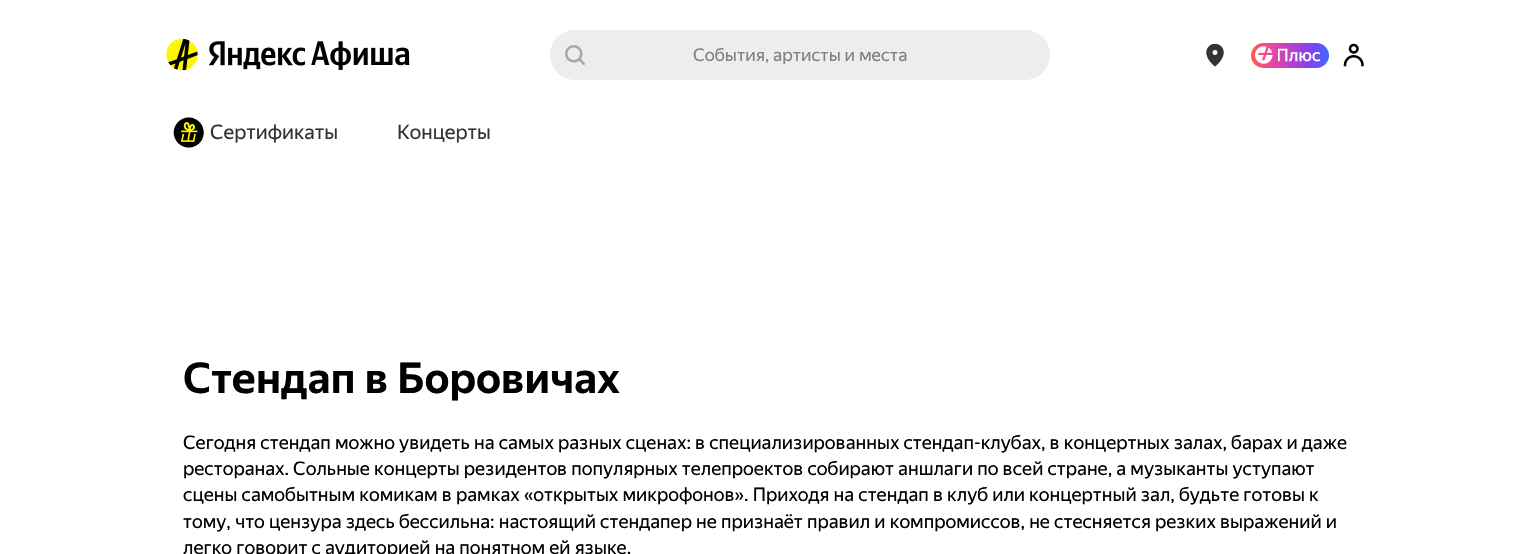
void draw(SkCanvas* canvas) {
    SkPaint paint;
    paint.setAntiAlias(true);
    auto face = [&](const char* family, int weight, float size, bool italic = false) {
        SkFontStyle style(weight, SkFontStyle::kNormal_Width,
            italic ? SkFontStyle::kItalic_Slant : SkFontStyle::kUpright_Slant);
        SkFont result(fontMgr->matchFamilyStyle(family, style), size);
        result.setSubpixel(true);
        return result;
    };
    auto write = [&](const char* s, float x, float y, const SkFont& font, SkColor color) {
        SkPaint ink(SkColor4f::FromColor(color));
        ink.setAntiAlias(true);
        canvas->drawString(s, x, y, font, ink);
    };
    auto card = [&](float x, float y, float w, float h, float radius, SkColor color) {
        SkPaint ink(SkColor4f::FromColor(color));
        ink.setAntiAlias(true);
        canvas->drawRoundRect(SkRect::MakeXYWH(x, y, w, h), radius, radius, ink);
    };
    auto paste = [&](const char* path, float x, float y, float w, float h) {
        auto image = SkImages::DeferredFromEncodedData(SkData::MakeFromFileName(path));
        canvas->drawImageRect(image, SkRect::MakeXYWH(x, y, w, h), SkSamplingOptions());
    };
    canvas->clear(SK_ColorWHITE);
    paste("pic1.png", 166, 39, 32, 32);
    paste("pic2.png", 208, 41, 202, 29);
    paste("pic3.png", 565, 45, 20, 20);
    card(550, 30, 500, 50, 25, SkColorSetARGB(18, 0, 0, 0));
    auto kFont1 = face("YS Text", 400, 17.5f);
    write("События, артисты и места", 693, 61, kFont1, SkColorSetRGB(128, 128, 128));
    paste("pic4.png", 1206, 44, 18, 23);
    {
        const SkColor colors[] = {SkColorSetRGB(255, 92, 77), SkColorSetRGB(235, 70, 159), SkColorSetRGB(131, 65, 239), SkColorSetRGB(63, 104, 249)};
        const float stops[] = {0, 0.27f, 0.75f, 1};
        const SkPoint ends[] = {{1251, 55}, {1329, 55}};
        paint.setShader(SkGradientShader::MakeLinear(ends, colors, stops, 4, SkTileMode::kClamp));
        paint.setAlpha(255);
    }
    canvas->drawRoundRect(SkRect::MakeXYWH(1251, 43, 78, 25), 12.5f, 12.5f, paint);
    paste("pic5.png", 1255, 46, 18, 18);
    paste("pic6.png", 1278, 48, 42, 14);
    paste("pic7.png", 1343, 43, 21, 24);
    paste("pic8.png", 173, 117, 31, 31);
    auto kFont2 = face("YS Text", 400, 20);
    write("Сертификаты", 210, 139, kFont2, SkColorSetRGB(51, 51, 51));
    write("Концерты", 397, 139, kFont2, SkColorSetRGB(51, 51, 51));
    auto kFont3 = face("YS Text", 700, 42.5f);
    write("Стендап в Боровичах", 183, 393, kFont3, SK_ColorBLACK);
    auto kFont4 = face("YS Text", 400, 18.75f);
    write("Сегодня стендап можно увидеть на самых разных сценах: в специализированных стендап-клубах, в концертных залах, барах и даже", 183, 449, kFont4, SK_ColorBLACK);
    write("ресторанах. Сольные концерты резидентов популярных телепроектов собирают аншлаги по всей стране, а музыканты уступают", 183, 475, kFont4, SK_ColorBLACK);
    write("сцены самобытным комикам в рамках «открытых микрофонов». Приходя на стендап в клуб или концертный зал, будьте готовы к", 183, 501, kFont4, SK_ColorBLACK);
    write("тому, что цензура здесь бессильна: настоящий стендапер не признаёт правил и компромиссов, не стесняется резких выражений и", 183, 528, kFont4, SK_ColorBLACK);
    write("легко говорит с аудиторией на понятном ей языке.", 183, 554, kFont4, SK_ColorBLACK);
}
